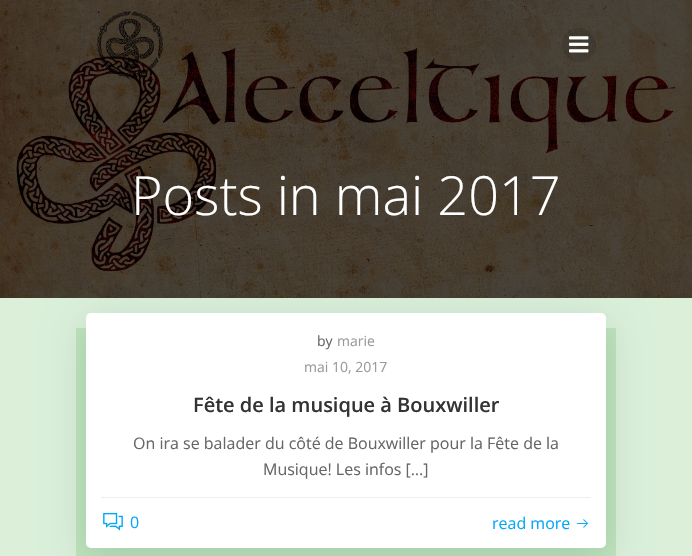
void draw(SkCanvas* canvas) {
    SkPaint paint;
    paint.setAntiAlias(true);
    auto face = [&](const char* family, int weight, float size, bool italic = false) {
        SkFontStyle style(weight, SkFontStyle::kNormal_Width,
            italic ? SkFontStyle::kItalic_Slant : SkFontStyle::kUpright_Slant);
        SkFont result(fontMgr->matchFamilyStyle(family, style), size);
        result.setSubpixel(true);
        return result;
    };
    auto write = [&](const char* s, float x, float y, const SkFont& font, SkColor color) {
        SkPaint ink(SkColor4f::FromColor(color));
        ink.setAntiAlias(true);
        canvas->drawString(s, x, y, font, ink);
    };
    auto block = [&](float x, float y, float w, float h, SkColor color) {
        SkPaint ink(SkColor4f::FromColor(color));
        ink.setAntiAlias(true);
        canvas->drawRect(SkRect::MakeXYWH(x, y, w, h), ink);
    };
    auto card = [&](float x, float y, float w, float h, float radius, SkColor color) {
        SkPaint ink(SkColor4f::FromColor(color));
        ink.setAntiAlias(true);
        canvas->drawRoundRect(SkRect::MakeXYWH(x, y, w, h), radius, radius, ink);
    };
    auto paste = [&](const char* path, float x, float y, float w, float h) {
        auto image = SkImages::DeferredFromEncodedData(SkData::MakeFromFileName(path));
        canvas->drawImageRect(image, SkRect::MakeXYWH(x, y, w, h), SkSamplingOptions());
    };
    canvas->clear(SK_ColorWHITE);
    paste("pic3.png", 0, 0, 692, 298);
    paste("pic1.png", 97, 11, 66, 69);
    paint.setColor(SkColorSetARGB(26, 0, 0, 0));
    canvas->drawCircle(579, 45, 17, paint);
    paste("pic2.png", 569, 36, 20, 17);
    auto kFont1 = face("Open Sans", 300, 54);
    write("Posts in mai 2017", 131, 215, kFont1, SK_ColorWHITE);
    block(0, 298, 692, 258, SkColorSetRGB(219, 239, 217));
    block(76, 328, 540, 228, SkColorSetRGB(191, 227, 187));
    paint.setColor(SkColorSetARGB(38, 1, 51, 74));
    paint.setMaskFilter(SkMaskFilter::MakeBlur(kNormal_SkBlurStyle, 20));
    canvas->drawRoundRect(SkRect::MakeXYWH(86, 323, 520, 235), 5, 5, paint);
    paint.setMaskFilter(nullptr);
    card(86, 313, 520, 235, 5, SK_ColorWHITE);
    block(101, 497, 490, 1, SkColorSetRGB(238, 238, 238));
    auto kFont2 = face("Open Sans", 400, 14);
    write("by", 317, 346, kFont2, SkColorSetRGB(102, 102, 102));
    write("marie", 337, 346, kFont2, SkColorSetRGB(153, 153, 153));
    write("mai 10, 2017", 304, 372, kFont2, SkColorSetRGB(153, 153, 153));
    auto kFont3 = face("Open Sans", 600, 20);
    write("Fête de la musique à Bouxwiller", 193, 412, kFont3, SkColorSetRGB(51, 51, 51));
    auto kFont4 = face("Open Sans", 400, 16);
    write("On ira se balader du côté de Bouxwiller pour la Fête de la", 133, 449, kFont4, SkColorSetRGB(102, 102, 102));
    write("Musique! Les infos […]", 263, 475, kFont4, SkColorSetRGB(102, 102, 102));
    paste("pic4.png", 103, 512, 20, 19);
    write("0", 130, 528, kFont4, SkColorSetRGB(3, 169, 244));
    write("read more", 492, 529, kFont4, SkColorSetRGB(3, 169, 244));
    paste("pic5.png", 576, 519, 12, 9);
}
